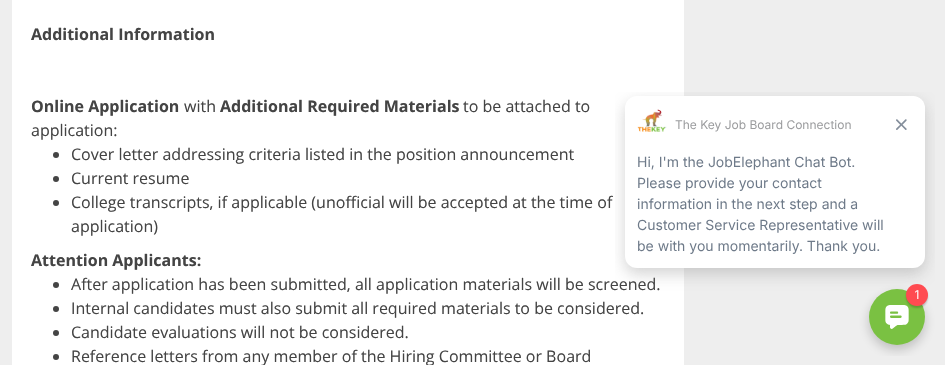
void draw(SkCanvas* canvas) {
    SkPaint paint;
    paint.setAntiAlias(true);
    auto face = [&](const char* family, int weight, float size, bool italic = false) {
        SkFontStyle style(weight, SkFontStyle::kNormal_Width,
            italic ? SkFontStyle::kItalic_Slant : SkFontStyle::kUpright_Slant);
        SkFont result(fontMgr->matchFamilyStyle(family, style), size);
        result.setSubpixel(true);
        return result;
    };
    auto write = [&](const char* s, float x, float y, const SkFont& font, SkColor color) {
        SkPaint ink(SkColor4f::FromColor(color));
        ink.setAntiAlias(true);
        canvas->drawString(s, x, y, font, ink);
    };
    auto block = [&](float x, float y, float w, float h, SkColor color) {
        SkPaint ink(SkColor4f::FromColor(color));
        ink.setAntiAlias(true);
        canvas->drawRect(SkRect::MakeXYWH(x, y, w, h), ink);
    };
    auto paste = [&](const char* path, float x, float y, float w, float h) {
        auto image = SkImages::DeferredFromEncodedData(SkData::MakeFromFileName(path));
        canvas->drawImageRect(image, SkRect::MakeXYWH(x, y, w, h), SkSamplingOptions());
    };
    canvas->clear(SkColorSetRGB(238, 238, 238));
    block(12, 0, 672, 365, SK_ColorWHITE);
    auto kFont1 = face("Open Sans", 700, 16);
    write("Additional Information", 31, 40, kFont1, SkColorSetRGB(68, 68, 68));
    write("Online Application", 31, 112, kFont1, SkColorSetRGB(68, 68, 68));
    auto kFont2 = face("Open Sans", 400, 16);
    write("with", 184, 112, kFont2, SkColorSetRGB(68, 68, 68));
    write("Additional Required Materials", 220, 112, kFont1, SkColorSetRGB(68, 68, 68));
    write("to be attached to", 463, 112, kFont2, SkColorSetRGB(68, 68, 68));
    write("application:", 31, 136, kFont2, SkColorSetRGB(68, 68, 68));
    paint.setColor(SkColorSetRGB(68, 68, 68));
    canvas->drawCircle(56, 155, 3, paint);
    write("Cover letter addressing criteria listed in the position announcement", 71, 160, kFont2, SkColorSetRGB(68, 68, 68));
    canvas->drawCircle(56, 179, 3, paint);
    write("Current resume", 71, 184, kFont2, SkColorSetRGB(68, 68, 68));
    canvas->drawCircle(56, 203, 3, paint);
    write("College transcripts, if applicable (unofficial will be accepted at the time of", 71, 208, kFont2, SkColorSetRGB(68, 68, 68));
    write("application)", 71, 232, kFont2, SkColorSetRGB(68, 68, 68));
    write("Attention Applicants:", 31, 266, kFont1, SkColorSetRGB(68, 68, 68));
    canvas->drawCircle(56, 285, 3, paint);
    write("After application has been submitted, all application materials will be screened.", 71, 290, kFont2, SkColorSetRGB(68, 68, 68));
    canvas->drawCircle(56, 309, 3, paint);
    write("Internal candidates must also submit all required materials to be considered.", 71, 314, kFont2, SkColorSetRGB(68, 68, 68));
    canvas->drawCircle(56, 333, 3, paint);
    write("Candidate evaluations will not be considered.", 71, 338, kFont2, SkColorSetRGB(68, 68, 68));
    canvas->drawCircle(56, 357, 3, paint);
    write("Reference letters from any member of the Hiring Committee or Board", 71, 362, kFont2, SkColorSetRGB(68, 68, 68));
    paste("pic1.png", 615, 92, 320, 264);
}
